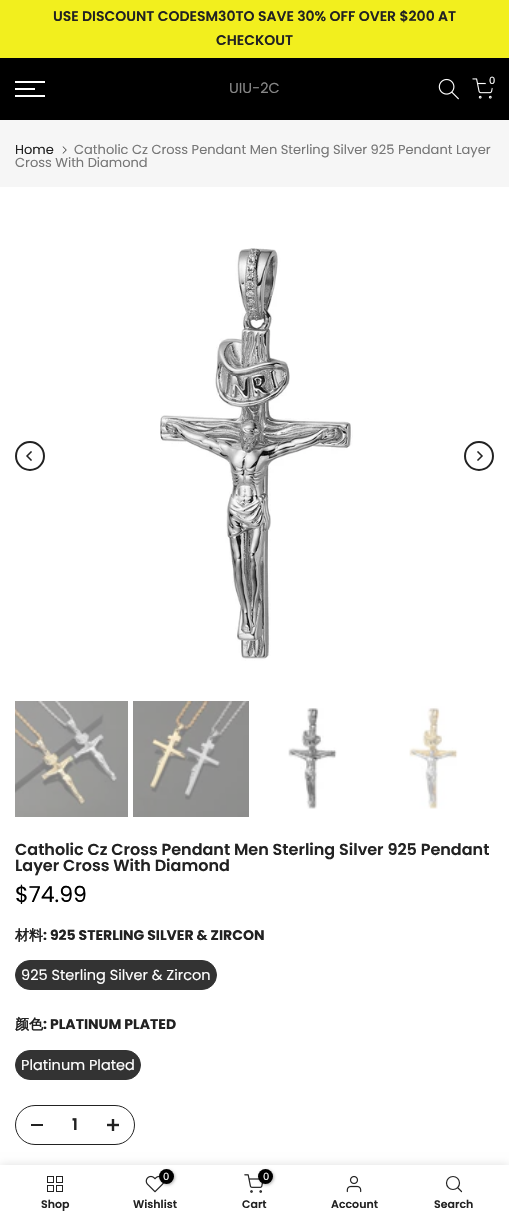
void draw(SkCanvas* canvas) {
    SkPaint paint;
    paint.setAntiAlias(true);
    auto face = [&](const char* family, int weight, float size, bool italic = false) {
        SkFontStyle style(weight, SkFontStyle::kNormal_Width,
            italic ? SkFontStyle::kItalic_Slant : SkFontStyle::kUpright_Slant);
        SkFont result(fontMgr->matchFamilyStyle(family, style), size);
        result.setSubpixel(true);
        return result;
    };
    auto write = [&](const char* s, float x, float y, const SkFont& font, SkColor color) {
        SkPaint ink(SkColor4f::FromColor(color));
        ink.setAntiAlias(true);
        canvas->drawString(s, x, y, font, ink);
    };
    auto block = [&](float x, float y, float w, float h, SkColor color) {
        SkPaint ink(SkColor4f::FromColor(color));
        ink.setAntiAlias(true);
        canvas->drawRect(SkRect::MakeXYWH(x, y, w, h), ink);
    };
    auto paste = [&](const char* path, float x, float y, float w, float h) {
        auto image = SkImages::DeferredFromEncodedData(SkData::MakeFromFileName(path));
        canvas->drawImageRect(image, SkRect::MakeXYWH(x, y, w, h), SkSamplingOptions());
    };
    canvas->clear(SK_ColorWHITE);
    block(0, 0, 509, 58, SkColorSetRGB(242, 239, 30));
    auto kFont1 = face("Poppins", 600, 14);
    write("USE DISCOUNT CODESM30TO SAVE 30% OFF OVER $200 AT", 53, 21, kFont1, SkColorSetRGB(34, 34, 34));
    write("CHECKOUT", 216, 45, kFont1, SkColorSetRGB(34, 34, 34));
    block(0, 58, 509, 62, SK_ColorBLACK);
    paste("pic1.png", 438, 78, 21, 22);
    paste("pic2.png", 472, 78, 21, 21);
    paint.setColor(SkColorSetARGB(77, 0, 0, 0));
    paint.setMaskFilter(SkMaskFilter::MakeBlur(kNormal_SkBlurStyle, 1.5f));
    canvas->drawRoundRect(SkRect::MakeXYWH(486, 74, 15, 15), 7.5f, 7.5f, paint);
    paint.setMaskFilter(nullptr);
    paint.setColor(SK_ColorBLACK);
    canvas->drawCircle(492.5f, 80.5f, 7.5f, paint);
    auto kFont2 = face("Poppins", 400, 10);
    write("0", 489, 84, kFont2, SK_ColorWHITE);
    block(15, 81, 30, 2, SK_ColorWHITE);
    block(15, 88, 20, 2, SK_ColorWHITE);
    block(15, 95, 30, 2, SK_ColorWHITE);
    auto kFont3 = face("Poppins", 400, 14.5f);
    write("UIU-2C", 229, 93, kFont3, SkColorSetRGB(135, 135, 135));
    block(0, 120, 509, 67, SkColorSetRGB(246, 246, 246));
    auto kFont4 = face("Poppins", 400, 13);
    write("Home", 15, 154, kFont4, SkColorSetRGB(34, 34, 34));
    paste("pic3.png", 62, 146, 5, 8);
    write("Catholic Cz Cross Pendant Men Sterling Silver 925 Pendant Layer", 74, 154, kFont4, SkColorSetRGB(119, 119, 119));
    write("Cross With Diamond", 15, 167, kFont4, SkColorSetRGB(119, 119, 119));
    paint.setStyle(SkPaint::kStroke_Style);
    paint.setStrokeWidth(2);
    paint.setColor(SkColorSetRGB(34, 34, 34));
    canvas->drawCircle(30, 456, 14, paint);
    paste("pic4.png", 26, 451, 6, 10);
    paste("pic5.png", 160, 248, 193, 413);
    canvas->drawCircle(479, 456, 14, paint);
    paste("pic6.png", 477, 451, 6, 10);
    paste("pic7.png", 15, 701, 113, 116);
    paste("pic8.png", 133, 701, 116, 116);
    paste("pic9.png", 288, 708, 49, 101);
    paste("pic10.png", 409, 706, 49, 103);
    auto kFont5 = face("Poppins", 600, 16);
    write("Catholic Cz Cross Pendant Men Sterling Silver 925 Pendant", 15, 855, kFont5, SkColorSetRGB(34, 34, 34));
    write("Layer Cross With Diamond", 15, 871, kFont5, SkColorSetRGB(34, 34, 34));
    auto kFont6 = face("Poppins", 400, 22);
    write("$74.99", 15, 902, kFont6, SK_ColorBLACK);
    auto kFont7 = face("WenQuanYi Zen Hei", 700, 14);
    write("材料", 15, 940, kFont7, SkColorSetRGB(34, 34, 34));
    auto kFont8 = face("Poppins", 700, 14);
    write(": 925 STERLING SILVER & ZIRCON", 43, 940, kFont8, SkColorSetRGB(34, 34, 34));
    paint.setStyle(SkPaint::kFill_Style);
    paint.setColor(SkColorSetRGB(51, 51, 51));
    canvas->drawRoundRect(SkRect::MakeXYWH(15.5f, 960.5f, 201, 29), 14.5f, 14.5f, paint);
    paint.setStyle(SkPaint::kStroke_Style);
    paint.setStrokeWidth(1);
    canvas->drawRoundRect(SkRect::MakeXYWH(15.5f, 960.5f, 201, 29), 14.5f, 14.5f, paint);
    write("925 Sterling Silver & Zircon", 21, 980, kFont3, SK_ColorWHITE);
    write("颜色", 15, 1029, kFont7, SkColorSetRGB(34, 34, 34));
    write(": PLATINUM PLATED", 43, 1029, kFont8, SkColorSetRGB(34, 34, 34));
    paint.setStyle(SkPaint::kFill_Style);
    canvas->drawRoundRect(SkRect::MakeXYWH(15.5f, 1050.5f, 125, 29), 14.5f, 14.5f, paint);
    paint.setStyle(SkPaint::kStroke_Style);
    canvas->drawRoundRect(SkRect::MakeXYWH(15.5f, 1050.5f, 125, 29), 14.5f, 14.5f, paint);
    write("Platinum Plated", 21, 1070, kFont3, SK_ColorWHITE);
    paint.setColor(SkColorSetRGB(34, 34, 34));
    canvas->drawRoundRect(SkRect::MakeXYWH(15.5f, 1105.5f, 119, 39), 19.5f, 19.5f, paint);
    block(31, 1124, 12, 2, SkColorSetRGB(34, 34, 34));
    write("1", 72, 1130, kFont5, SkColorSetRGB(34, 34, 34));
    paste("pic11.png", 107, 1119, 12, 12);
    paint.setStyle(SkPaint::kFill_Style);
    paint.setColor(SkColorSetARGB(31, 0, 0, 0));
    paint.setMaskFilter(SkMaskFilter::MakeBlur(kNormal_SkBlurStyle, 4.5f));
    canvas->drawRect(SkRect::MakeXYWH(0, 1165, 509, 55), paint);
    paint.setMaskFilter(nullptr);
    block(0, 1165, 509, 55, SK_ColorWHITE);
    paste("pic12.png", 47, 1176, 16, 16);
    auto kFont9 = face("Poppins", 600, 11);
    write("Shop", 41, 1208, kFont9, SkColorSetRGB(34, 34, 34));
    paste("pic13.png", 145, 1175, 19, 18);
    paint.setColor(SkColorSetARGB(77, 0, 0, 0));
    paint.setMaskFilter(SkMaskFilter::MakeBlur(kNormal_SkBlurStyle, 1.5f));
    canvas->drawRoundRect(SkRect::MakeXYWH(160, 1170, 15, 15), 7.5f, 7.5f, paint);
    paint.setMaskFilter(nullptr);
    paint.setColor(SK_ColorBLACK);
    canvas->drawCircle(166.5f, 1176.5f, 7.5f, paint);
    write("0", 163, 1180, kFont2, SK_ColorWHITE);
    write("Wishlist", 133, 1208, kFont9, SkColorSetRGB(34, 34, 34));
    paste("pic14.png", 244, 1174, 19, 19);
    paint.setColor(SkColorSetARGB(77, 0, 0, 0));
    paint.setMaskFilter(SkMaskFilter::MakeBlur(kNormal_SkBlurStyle, 1.5f));
    canvas->drawRoundRect(SkRect::MakeXYWH(259, 1170, 15, 15), 7.5f, 7.5f, paint);
    paint.setMaskFilter(nullptr);
    paint.setColor(SK_ColorBLACK);
    canvas->drawCircle(265.5f, 1176.5f, 7.5f, paint);
    write("0", 263, 1180, kFont2, SK_ColorWHITE);
    write("Cart", 242, 1208, kFont9, SkColorSetRGB(34, 34, 34));
    paste("pic15.png", 346, 1175, 16, 18);
    write("Account", 331, 1208, kFont9, SkColorSetRGB(34, 34, 34));
    paint.setStyle(SkPaint::kStroke_Style);
    paint.setStrokeWidth(1.2f);
    paint.setColor(SkColorSetRGB(34, 34, 34));
    canvas->drawCircle(453, 1183, 6.5f, paint);
    paint.setStrokeCap(SkPaint::kRound_Cap);
    paint.setStrokeJoin(SkPaint::kRound_Join);
    canvas->drawPath(SkPathBuilder().moveTo(461.5f, 1191.5f).lineTo(458, 1188).detach(), paint);
    write("Search", 434, 1208, kFont9, SkColorSetRGB(34, 34, 34));
}
